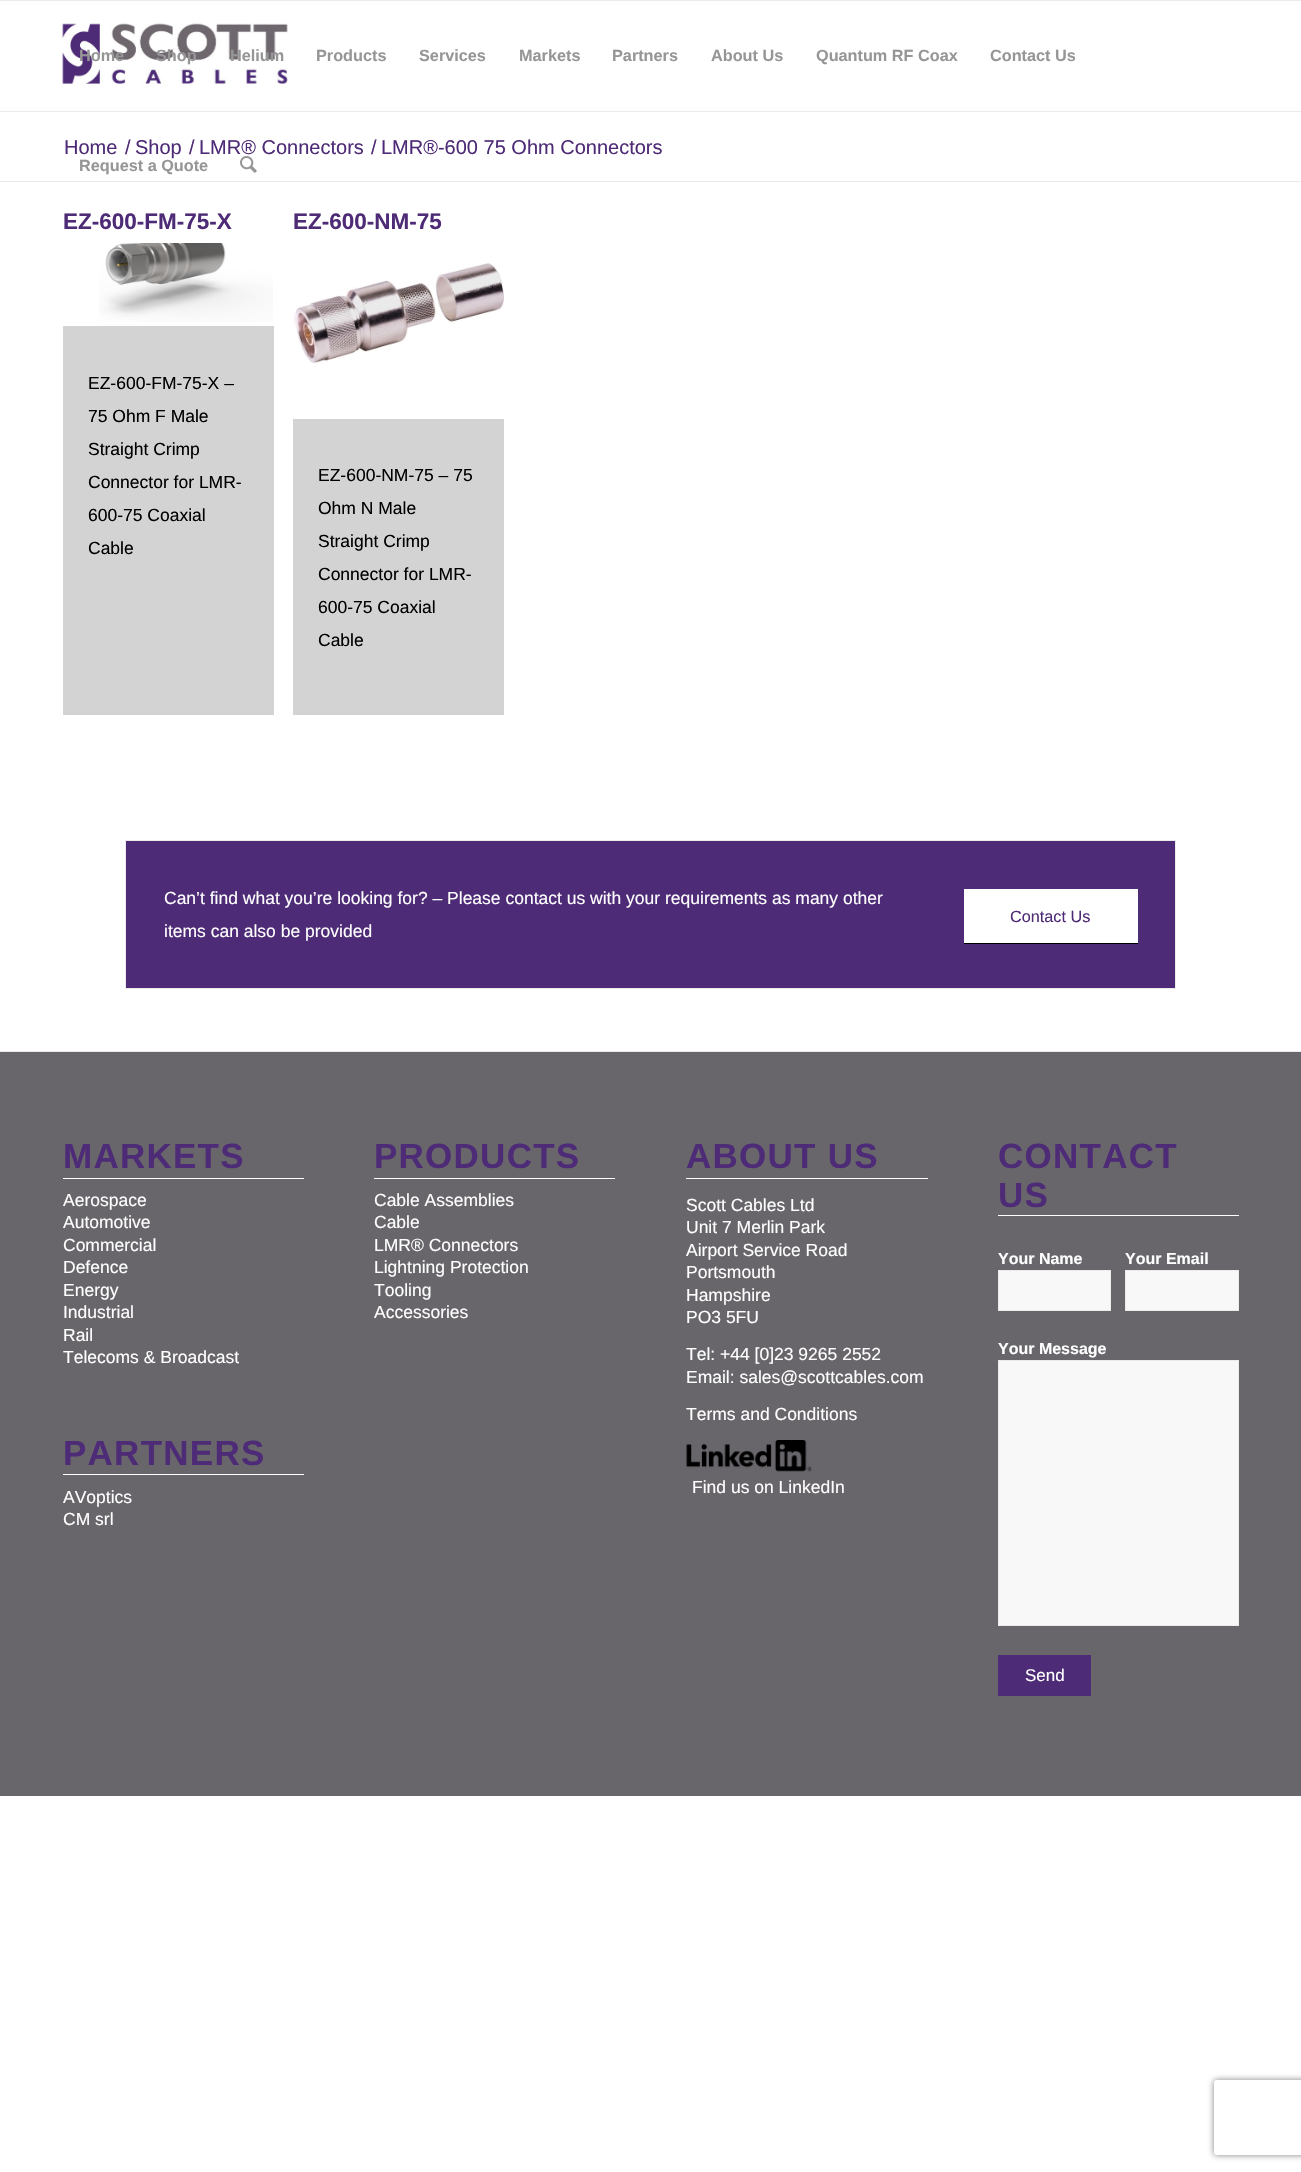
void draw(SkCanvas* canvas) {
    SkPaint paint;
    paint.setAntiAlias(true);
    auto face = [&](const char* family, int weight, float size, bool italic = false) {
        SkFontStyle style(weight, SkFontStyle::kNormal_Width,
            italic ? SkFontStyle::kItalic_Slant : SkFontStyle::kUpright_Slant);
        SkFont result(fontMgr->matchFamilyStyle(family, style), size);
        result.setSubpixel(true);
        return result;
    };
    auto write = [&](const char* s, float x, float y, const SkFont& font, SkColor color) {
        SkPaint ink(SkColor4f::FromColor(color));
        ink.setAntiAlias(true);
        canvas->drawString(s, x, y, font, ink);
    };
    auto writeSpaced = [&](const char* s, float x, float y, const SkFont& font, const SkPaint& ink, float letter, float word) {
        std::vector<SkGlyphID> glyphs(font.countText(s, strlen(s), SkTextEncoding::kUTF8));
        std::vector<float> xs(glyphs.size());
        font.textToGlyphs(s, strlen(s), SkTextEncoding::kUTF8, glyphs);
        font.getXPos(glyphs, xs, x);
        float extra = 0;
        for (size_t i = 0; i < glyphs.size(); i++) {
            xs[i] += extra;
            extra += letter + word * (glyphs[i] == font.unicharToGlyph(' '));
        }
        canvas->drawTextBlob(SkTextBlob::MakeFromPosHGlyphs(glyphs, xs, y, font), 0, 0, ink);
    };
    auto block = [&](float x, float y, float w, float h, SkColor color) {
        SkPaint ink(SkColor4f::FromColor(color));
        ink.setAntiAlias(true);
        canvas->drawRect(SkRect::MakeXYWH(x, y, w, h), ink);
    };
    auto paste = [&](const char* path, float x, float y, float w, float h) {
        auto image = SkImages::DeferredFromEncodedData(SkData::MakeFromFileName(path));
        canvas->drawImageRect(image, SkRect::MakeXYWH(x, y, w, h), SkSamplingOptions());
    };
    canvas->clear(SK_ColorWHITE);
    block(0, 0, 1301, 1, SkColorSetRGB(235, 235, 235));
    block(0, 111, 1301, 1, SkColorSetRGB(235, 235, 235));
    paste("pic1.png", 62, 23, 226, 61);
    auto kFont1 = face("Liberation Sans", 700, 16.25f);
    write("Home", 79, 61, kFont1, SkColorSetRGB(150, 150, 150));
    write("Shop", 156, 61, kFont1, SkColorSetRGB(150, 150, 150));
    write("Helium", 230, 61, kFont1, SkColorSetRGB(150, 150, 150));
    write("Products", 316, 61, kFont1, SkColorSetRGB(150, 150, 150));
    write("Services", 419, 61, kFont1, SkColorSetRGB(150, 150, 150));
    write("Markets", 519, 61, kFont1, SkColorSetRGB(150, 150, 150));
    write("Partners", 612, 61, kFont1, SkColorSetRGB(150, 150, 150));
    write("About Us", 711, 61, kFont1, SkColorSetRGB(150, 150, 150));
    write("Quantum RF Coax", 816, 61, kFont1, SkColorSetRGB(150, 150, 150));
    write("Contact Us", 990, 61, kFont1, SkColorSetRGB(150, 150, 150));
    write("Request a Quote", 79, 171, kFont1, SkColorSetRGB(150, 150, 150));
    paste("pic2.png", 240, 156, 17, 17);
    auto kFont2 = face("Liberation Sans", 400, 20);
    write("Home", 64, 154, kFont2, SkColorSetRGB(78, 43, 118));
    write("/", 125, 154, kFont2, SkColorSetRGB(78, 43, 118));
    write("Shop", 135, 154, kFont2, SkColorSetRGB(78, 43, 118));
    write("/", 189, 154, kFont2, SkColorSetRGB(78, 43, 118));
    write("LMR® Connectors", 199, 154, kFont2, SkColorSetRGB(78, 43, 118));
    write("/", 371, 154, kFont2, SkColorSetRGB(78, 43, 118));
    write("LMR®-600 75 Ohm Connectors", 381, 154, kFont2, SkColorSetRGB(78, 43, 118));
    block(0, 181, 1301, 1, SkColorSetRGB(235, 235, 235));
    block(63, 326, 211, 389, SkColorSetRGB(211, 211, 211));
    auto kFont3 = face("Liberation Sans", 700, 22.5f);
    write("EZ-600-FM-75-X", 63, 229, kFont3, SkColorSetRGB(78, 43, 118));
    paste("pic3.png", 99, 243, 174, 79);
    auto kFont4 = face("Liberation Sans", 400, 17.5f);
    write("EZ-600-FM-75-X –", 88, 389, kFont4, SK_ColorBLACK);
    write("75 Ohm F Male", 88, 422, kFont4, SK_ColorBLACK);
    write("Straight Crimp", 88, 455, kFont4, SK_ColorBLACK);
    write("Connector for LMR-", 88, 488, kFont4, SK_ColorBLACK);
    write("600-75 Coaxial", 88, 521, kFont4, SK_ColorBLACK);
    write("Cable", 88, 554, kFont4, SK_ColorBLACK);
    block(293, 419, 211, 296, SkColorSetRGB(211, 211, 211));
    write("EZ-600-NM-75", 293, 229, kFont3, SkColorSetRGB(78, 43, 118));
    paste("pic4.png", 293, 263, 211, 100);
    write("EZ-600-NM-75 – 75", 318, 481, kFont4, SK_ColorBLACK);
    write("Ohm N Male", 318, 514, kFont4, SK_ColorBLACK);
    write("Straight Crimp", 318, 547, kFont4, SK_ColorBLACK);
    write("Connector for LMR-", 318, 580, kFont4, SK_ColorBLACK);
    write("600-75 Coaxial", 318, 613, kFont4, SK_ColorBLACK);
    write("Cable", 318, 646, kFont4, SK_ColorBLACK);
    paint.setColor(SkColorSetRGB(78, 43, 118));
    canvas->drawRect(SkRect::MakeXYWH(125.5f, 840.5f, 1050, 148), paint);
    paint.setStyle(SkPaint::kStroke_Style);
    paint.setStrokeWidth(1);
    paint.setColor(SkColorSetRGB(235, 235, 235));
    canvas->drawRect(SkRect::MakeXYWH(125.5f, 840.5f, 1050, 148), paint);
    write("Can’t find what you’re looking for? – Please contact us with your requirements as many other", 164, 904, kFont4, SK_ColorWHITE);
    write("items can also be provided", 164, 937, kFont4, SK_ColorWHITE);
    block(964, 889, 174, 54, SK_ColorWHITE);
    block(964, 943, 174, 1, SK_ColorBLACK);
    auto kFont5 = face("Liberation Sans", 400, 16.25f);
    write("Contact Us", 1010, 922, kFont5, SkColorSetRGB(78, 43, 118));
    block(0, 1052, 1301, 744, SkColorSetRGB(104, 102, 107));
    block(0, 1051, 1301, 1, SkColorSetRGB(235, 235, 235));
    block(63, 1178, 241, 1, SK_ColorWHITE);
    auto kFont6 = face("Liberation Sans", 700, 35);
    paint.setStyle(SkPaint::kFill_Style);
    paint.setColor(SkColorSetRGB(78, 43, 118));
    writeSpaced("MARKETS", 63, 1168, kFont6, paint, 1.25f, 0);
    write("Aerospace", 63, 1206, kFont4, SK_ColorWHITE);
    write("Automotive", 63, 1228, kFont4, SK_ColorWHITE);
    write("Commercial", 63, 1251, kFont4, SK_ColorWHITE);
    write("Defence", 63, 1273, kFont4, SK_ColorWHITE);
    write("Energy", 63, 1296, kFont4, SK_ColorWHITE);
    write("Industrial", 63, 1318, kFont4, SK_ColorWHITE);
    write("Rail", 63, 1341, kFont4, SK_ColorWHITE);
    write("Telecoms & Broadcast", 63, 1363, kFont4, SK_ColorWHITE);
    block(63, 1474, 241, 1, SK_ColorWHITE);
    writeSpaced("PARTNERS", 63, 1465, kFont6, paint, 1.25f, 0);
    write("AVoptics", 63, 1503, kFont4, SK_ColorWHITE);
    write("CM srl", 63, 1525, kFont4, SK_ColorWHITE);
    block(374, 1178, 241, 1, SK_ColorWHITE);
    writeSpaced("PRODUCTS", 374, 1168, kFont6, paint, 1.25f, 0);
    write("Cable Assemblies", 374, 1206, kFont4, SK_ColorWHITE);
    write("Cable", 374, 1228, kFont4, SK_ColorWHITE);
    write("LMR® Connectors", 374, 1251, kFont4, SK_ColorWHITE);
    write("Lightning Protection", 374, 1273, kFont4, SK_ColorWHITE);
    write("Tooling", 374, 1296, kFont4, SK_ColorWHITE);
    write("Accessories", 374, 1318, kFont4, SK_ColorWHITE);
    block(686, 1178, 242, 1, SK_ColorWHITE);
    writeSpaced("ABOUT US", 686, 1168, kFont6, paint, 1.25f, 0);
    write("Scott Cables Ltd", 686, 1211, kFont4, SK_ColorWHITE);
    write("Unit 7 Merlin Park", 686, 1233, kFont4, SK_ColorWHITE);
    write("Airport Service Road", 686, 1256, kFont4, SK_ColorWHITE);
    write("Portsmouth", 686, 1278, kFont4, SK_ColorWHITE);
    write("Hampshire", 686, 1301, kFont4, SK_ColorWHITE);
    write("PO3 5FU", 686, 1323, kFont4, SK_ColorWHITE);
    write("Tel: +44 [0]23 9265 2552", 686, 1360, kFont4, SK_ColorWHITE);
    write("Email: sales@scottcables.com", 686, 1383, kFont4, SK_ColorWHITE);
    write("Terms and Conditions", 686, 1420, kFont4, SK_ColorWHITE);
    paste("pic5.png", 686, 1440, 126, 32);
    write("Find us on LinkedIn", 692, 1493, kFont4, SK_ColorWHITE);
    block(998, 1215, 241, 1, SK_ColorWHITE);
    writeSpaced("CONTACT", 998, 1168, kFont6, paint, 1.25f, 0);
    writeSpaced("US", 998, 1207, kFont6, paint, 1.25f, 0);
    auto kFont7 = face("Liberation Sans", 700, 16);
    write("Your Name", 998, 1264, kFont7, SK_ColorWHITE);
    paint.setColor(SkColorSetRGB(248, 248, 248));
    canvas->drawRect(SkRect::MakeXYWH(998.5f, 1270.5f, 112, 40), paint);
    paint.setStyle(SkPaint::kStroke_Style);
    paint.setColor(SkColorSetRGB(235, 235, 235));
    canvas->drawRect(SkRect::MakeXYWH(998.5f, 1270.5f, 112, 40), paint);
    write("Your Email", 1125, 1264, kFont7, SK_ColorWHITE);
    paint.setStyle(SkPaint::kFill_Style);
    paint.setColor(SkColorSetRGB(248, 248, 248));
    canvas->drawRect(SkRect::MakeXYWH(1125.5f, 1270.5f, 113, 40), paint);
    paint.setStyle(SkPaint::kStroke_Style);
    paint.setColor(SkColorSetRGB(235, 235, 235));
    canvas->drawRect(SkRect::MakeXYWH(1125.5f, 1270.5f, 113, 40), paint);
    write("Your Message", 998, 1354, kFont7, SK_ColorWHITE);
    paint.setStyle(SkPaint::kFill_Style);
    paint.setColor(SkColorSetRGB(248, 248, 248));
    canvas->drawRect(SkRect::MakeXYWH(998.5f, 1360.5f, 240, 265), paint);
    paint.setStyle(SkPaint::kStroke_Style);
    paint.setColor(SkColorSetRGB(235, 235, 235));
    canvas->drawRect(SkRect::MakeXYWH(998.5f, 1360.5f, 240, 265), paint);
    block(998, 1655, 93, 41, SkColorSetRGB(78, 43, 118));
    auto kFont8 = face("Liberation Sans", 400, 17);
    write("Send", 1025, 1681, kFont8, SK_ColorWHITE);
    canvas->save();
    canvas->clipPath(SkPathBuilder(SkPathFillType::kEvenOdd).moveTo(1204, 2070).lineTo(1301, 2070).lineTo(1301, 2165).lineTo(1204, 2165).close().moveTo(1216.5f, 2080).lineTo(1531.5f, 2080).cubicTo(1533, 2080, 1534, 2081, 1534, 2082.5f).lineTo(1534, 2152.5f).cubicTo(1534, 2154, 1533, 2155, 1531.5f, 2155).lineTo(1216.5f, 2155).cubicTo(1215, 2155, 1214, 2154, 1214, 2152.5f).lineTo(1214, 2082.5f).cubicTo(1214, 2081, 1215, 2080, 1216.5f, 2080).close().detach(), true);
    paint.setStyle(SkPaint::kFill_Style);
    paint.setColor(SkColorSetRGB(128, 128, 128));
    paint.setMaskFilter(SkMaskFilter::MakeBlur(kNormal_SkBlurStyle, 3));
    canvas->drawRoundRect(SkRect::MakeXYWH(1214, 2080, 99, 75), 2.5f, 2.5f, paint);
    paint.setMaskFilter(nullptr);
    canvas->restore();
}
